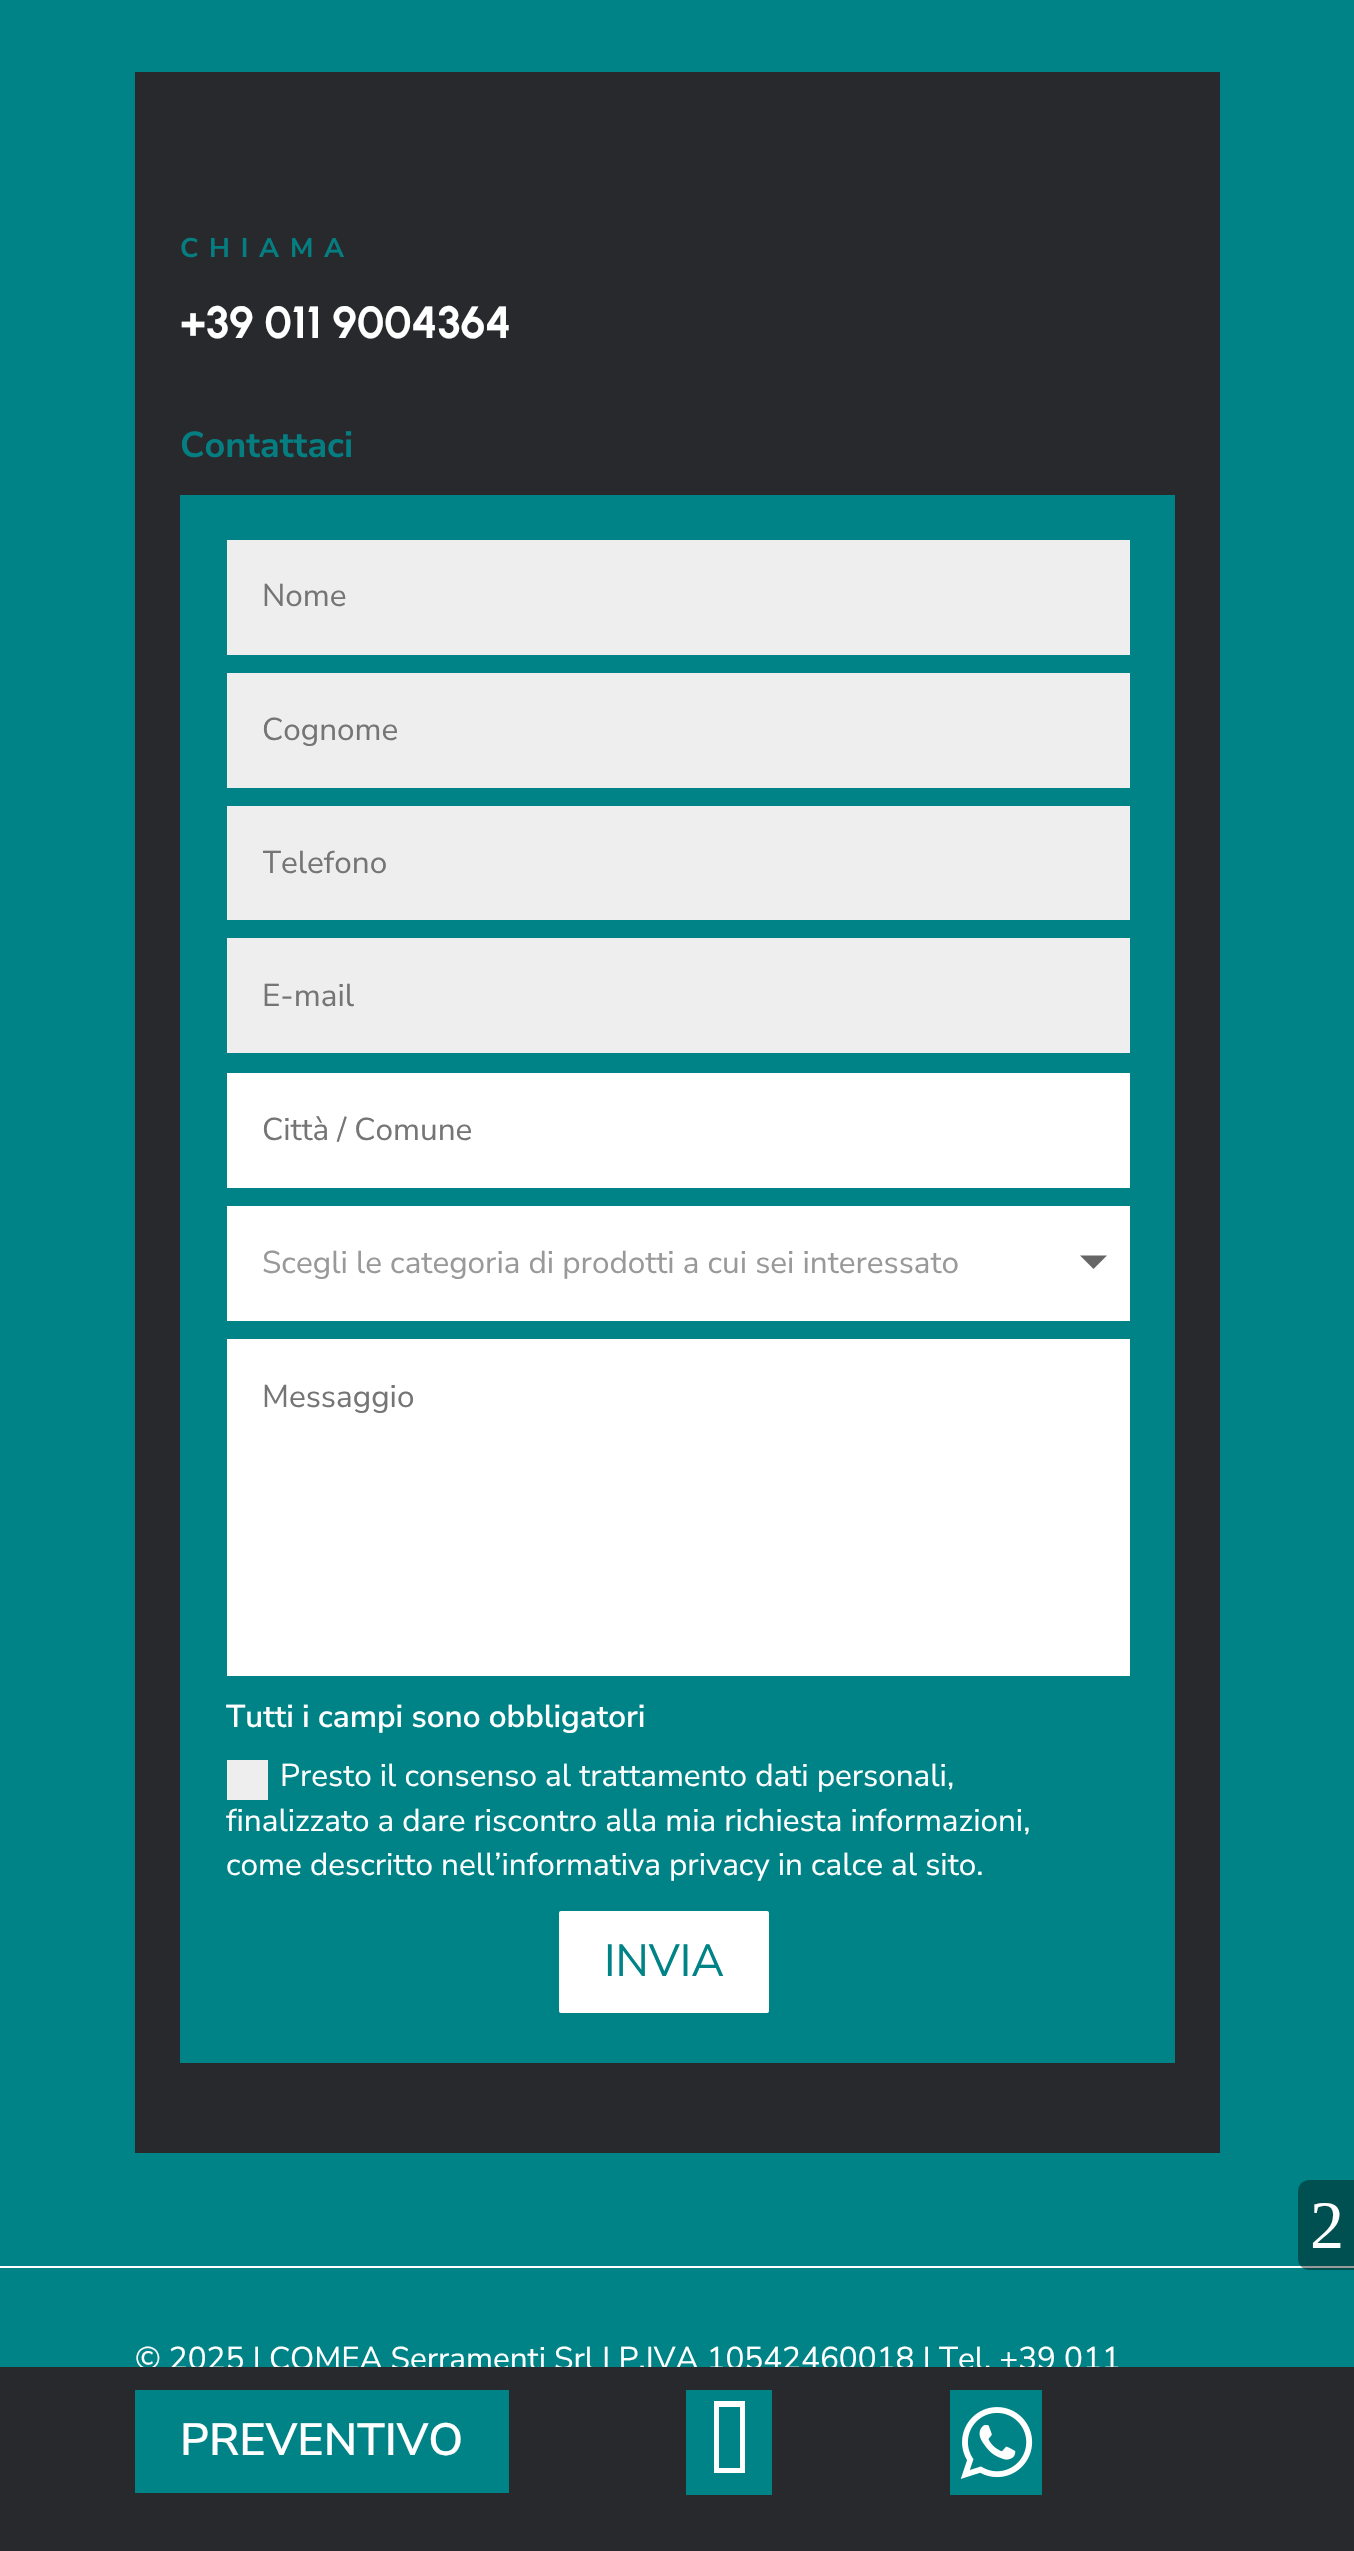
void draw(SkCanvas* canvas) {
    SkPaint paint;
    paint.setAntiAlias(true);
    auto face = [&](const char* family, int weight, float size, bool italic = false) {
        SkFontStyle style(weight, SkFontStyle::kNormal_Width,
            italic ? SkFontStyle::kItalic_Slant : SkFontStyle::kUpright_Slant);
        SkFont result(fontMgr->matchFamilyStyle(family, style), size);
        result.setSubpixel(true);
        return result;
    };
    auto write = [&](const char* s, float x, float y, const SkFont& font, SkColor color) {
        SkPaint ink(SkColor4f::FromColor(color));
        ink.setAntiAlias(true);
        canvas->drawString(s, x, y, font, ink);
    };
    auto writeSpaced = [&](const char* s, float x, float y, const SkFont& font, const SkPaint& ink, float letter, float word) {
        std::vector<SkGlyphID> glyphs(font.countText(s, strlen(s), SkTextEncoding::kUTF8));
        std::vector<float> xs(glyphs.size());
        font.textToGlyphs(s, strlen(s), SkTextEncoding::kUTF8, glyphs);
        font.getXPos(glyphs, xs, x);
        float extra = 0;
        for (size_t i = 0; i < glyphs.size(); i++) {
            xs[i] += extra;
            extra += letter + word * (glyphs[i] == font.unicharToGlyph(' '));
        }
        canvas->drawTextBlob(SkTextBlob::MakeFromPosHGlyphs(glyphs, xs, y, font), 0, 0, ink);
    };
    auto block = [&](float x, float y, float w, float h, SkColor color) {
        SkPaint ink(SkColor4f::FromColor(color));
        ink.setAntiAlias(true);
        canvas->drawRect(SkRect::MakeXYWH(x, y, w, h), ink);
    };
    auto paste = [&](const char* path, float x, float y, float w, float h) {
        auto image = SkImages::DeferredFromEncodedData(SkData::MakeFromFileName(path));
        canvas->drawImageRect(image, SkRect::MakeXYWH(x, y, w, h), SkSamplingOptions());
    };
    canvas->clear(SkColorSetRGB(0, 131, 135));
    block(0, 2266, 1354, 2, SK_ColorWHITE);
    block(135, 72, 1085, 2081, SkColorSetRGB(40, 41, 45));
    auto kFont1 = face("Nunito Sans", 700, 27);
    paint.setColor(SkColorSetRGB(4, 126, 129));
    writeSpaced("CHIAMA", 180, 257, kFont1, paint, 10.75f, 0);
    auto kFont2 = face("Urbanist", 700, 45);
    write("+39 011 9004364", 180, 338, kFont2, SK_ColorWHITE);
    auto kFont3 = face("Nunito Sans", 700, 36);
    write("Contattaci", 180, 457, kFont3, SkColorSetRGB(4, 126, 129));
    block(180, 495, 995, 1568, SkColorSetRGB(0, 131, 135));
    block(227, 540, 903, 115, SkColorSetRGB(238, 238, 238));
    auto kFont4 = face("Nunito Sans", 400, 31.5f);
    write("Nome", 262, 606, kFont4, SkColorSetRGB(117, 117, 117));
    block(227, 673, 903, 115, SkColorSetRGB(238, 238, 238));
    write("Cognome", 262, 740, kFont4, SkColorSetRGB(117, 117, 117));
    block(227, 806, 903, 114, SkColorSetRGB(238, 238, 238));
    canvas->save();
    canvas->clipRect(SkRect::MakeXYWH(263, 842, 831, 42));
    write("Telefono", 262, 873, kFont4, SkColorSetRGB(117, 117, 117));
    canvas->restore();
    block(227, 938, 903, 115, SkColorSetRGB(238, 238, 238));
    write("E-mail", 262, 1006, kFont4, SkColorSetRGB(117, 117, 117));
    block(227, 1073, 903, 115, SK_ColorWHITE);
    write("Città / Comune", 262, 1140, kFont4, SkColorSetRGB(117, 117, 117));
    block(227, 1206, 903, 115, SK_ColorWHITE);
    write("Scegli le categoria di prodotti a cui sei interessato", 262, 1273, kFont4, SkColorSetRGB(153, 153, 153));
    paint.setColor(SkColorSetRGB(102, 102, 102));
    canvas->drawPath(SkPathBuilder().moveTo(1080, 1255.5f).lineTo(1107, 1255.5f).lineTo(1093.5f, 1269).close().detach(), paint);
    block(227, 1339, 903, 337, SK_ColorWHITE);
    write("Messaggio", 262, 1407, kFont4, SkColorSetRGB(117, 117, 117));
    auto kFont5 = face("Nunito Sans", 600, 31.5f);
    write("Tutti i campi sono obbligatori", 226, 1727, kFont5, SK_ColorWHITE);
    block(227, 1760, 41, 40, SkColorSetRGB(238, 238, 238));
    write("Presto il consenso al trattamento dati personali,", 280, 1786, kFont4, SK_ColorWHITE);
    write("finalizzato a dare riscontro alla mia richiesta informazioni,", 226, 1831, kFont4, SK_ColorWHITE);
    write("come descritto nell’informativa privacy in calce al sito.", 226, 1875, kFont4, SK_ColorWHITE);
    paint.setColor(SK_ColorWHITE);
    canvas->drawRoundRect(SkRect::MakeXYWH(556.5f, 1908.5f, 215, 107), 4.5f, 4.5f, paint);
    paint.setStyle(SkPaint::kStroke_Style);
    paint.setStrokeWidth(5);
    paint.setColor(SkColorSetRGB(0, 131, 135));
    canvas->drawRoundRect(SkRect::MakeXYWH(556.5f, 1908.5f, 215, 107), 4.5f, 4.5f, paint);
    auto kFont6 = face("Nunito Sans", 400, 45);
    write("INVIA", 604, 1976, kFont6, SkColorSetRGB(0, 131, 135));
    write("© 2025 | COMEA Serramenti Srl | P.IVA 10542460018 | Tel. +39 011", 135, 2369, kFont4, SK_ColorWHITE);
    block(0, 2367, 1354, 184, SkColorSetRGB(40, 41, 45));
    block(135, 2390, 374, 103, SkColorSetRGB(0, 131, 135));
    auto kFont7 = face("Nunito Sans", 600, 45);
    write("PREVENTIVO", 180, 2455, kFont7, SK_ColorWHITE);
    block(686, 2390, 86, 105, SkColorSetRGB(0, 131, 135));
    paint.setStyle(SkPaint::kFill_Style);
    paint.setColor(SK_ColorWHITE);
    canvas->drawPath(SkPathBuilder().moveTo(719, 2468).lineTo(719, 2407).lineTo(740, 2407).lineTo(740, 2468).close().moveTo(714, 2473).lineTo(745, 2473).lineTo(745, 2401).lineTo(714, 2401).close().detach(), paint);
    block(950, 2390, 92, 105, SkColorSetRGB(0, 131, 135));
    paste("pic1.png", 960, 2407, 73, 72);
    paint.setColor(SkColorSetARGB(102, 0, 0, 0));
    canvas->drawPath(SkPathBuilder().moveTo(1309, 2180).lineTo(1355, 2180).lineTo(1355, 2270).lineTo(1309, 2270).cubicTo(1303, 2270, 1298, 2265, 1298, 2259).lineTo(1298, 2191).cubicTo(1298, 2185, 1303, 2180, 1309, 2180).close().detach(), paint);
    auto kFont8 = face("Liberation Serif", 400, 68);
    write("2", 1310, 2248, kFont8, SK_ColorWHITE);
}
